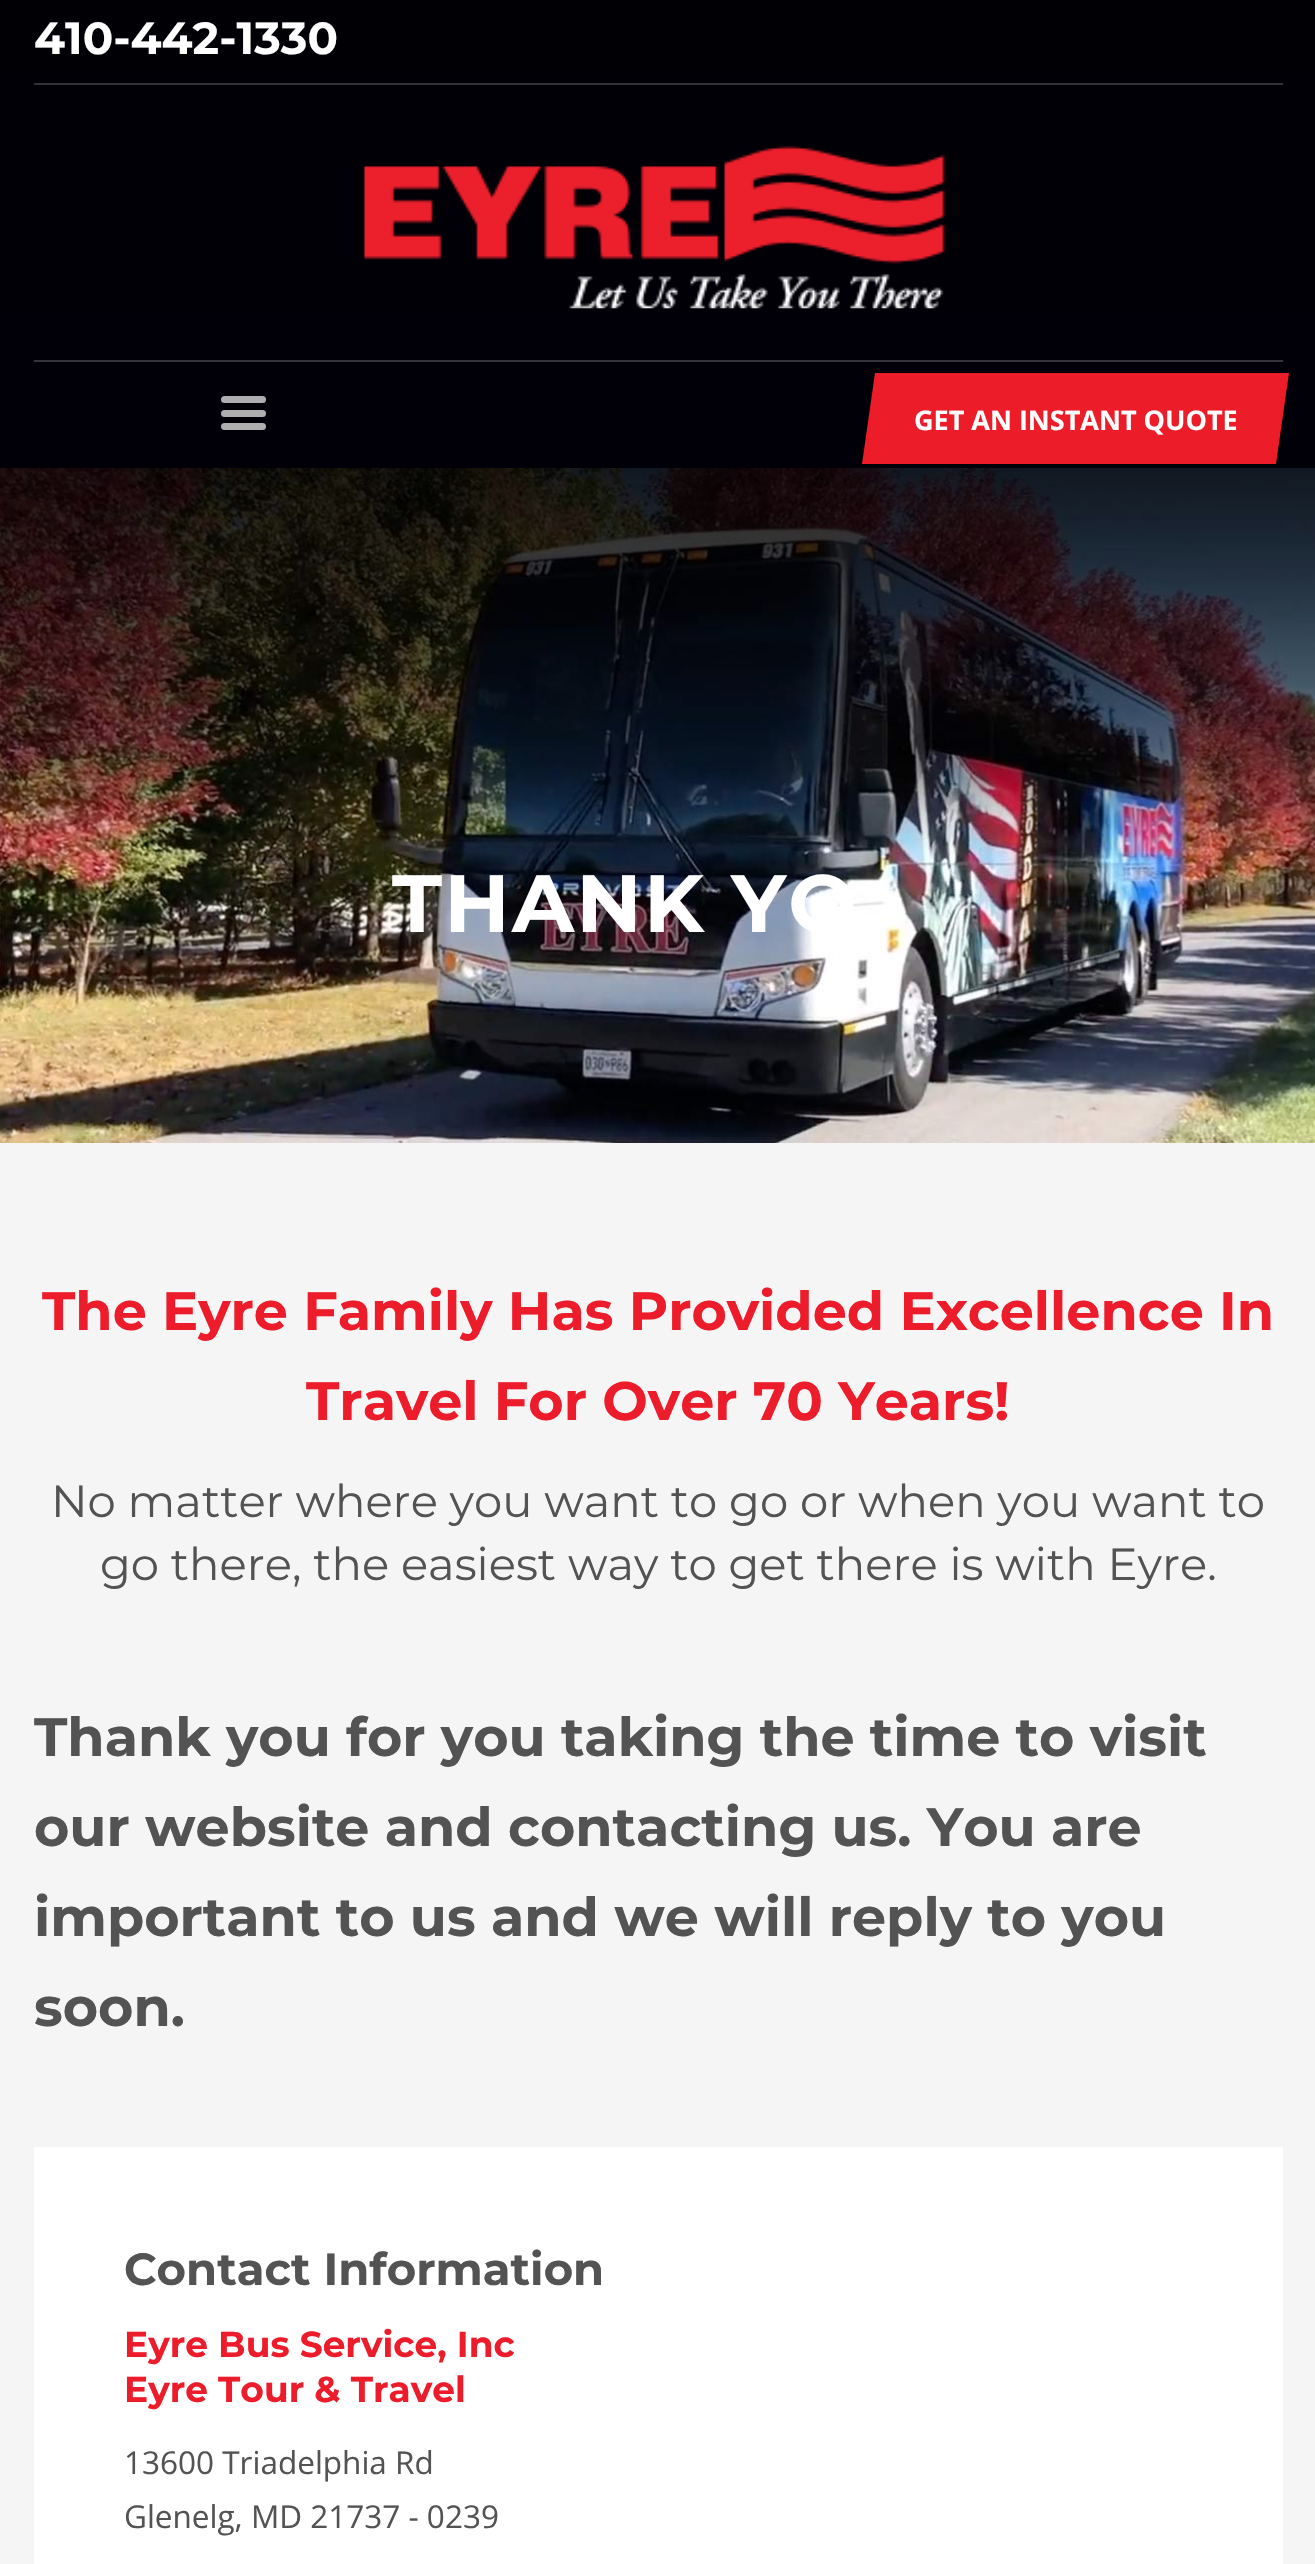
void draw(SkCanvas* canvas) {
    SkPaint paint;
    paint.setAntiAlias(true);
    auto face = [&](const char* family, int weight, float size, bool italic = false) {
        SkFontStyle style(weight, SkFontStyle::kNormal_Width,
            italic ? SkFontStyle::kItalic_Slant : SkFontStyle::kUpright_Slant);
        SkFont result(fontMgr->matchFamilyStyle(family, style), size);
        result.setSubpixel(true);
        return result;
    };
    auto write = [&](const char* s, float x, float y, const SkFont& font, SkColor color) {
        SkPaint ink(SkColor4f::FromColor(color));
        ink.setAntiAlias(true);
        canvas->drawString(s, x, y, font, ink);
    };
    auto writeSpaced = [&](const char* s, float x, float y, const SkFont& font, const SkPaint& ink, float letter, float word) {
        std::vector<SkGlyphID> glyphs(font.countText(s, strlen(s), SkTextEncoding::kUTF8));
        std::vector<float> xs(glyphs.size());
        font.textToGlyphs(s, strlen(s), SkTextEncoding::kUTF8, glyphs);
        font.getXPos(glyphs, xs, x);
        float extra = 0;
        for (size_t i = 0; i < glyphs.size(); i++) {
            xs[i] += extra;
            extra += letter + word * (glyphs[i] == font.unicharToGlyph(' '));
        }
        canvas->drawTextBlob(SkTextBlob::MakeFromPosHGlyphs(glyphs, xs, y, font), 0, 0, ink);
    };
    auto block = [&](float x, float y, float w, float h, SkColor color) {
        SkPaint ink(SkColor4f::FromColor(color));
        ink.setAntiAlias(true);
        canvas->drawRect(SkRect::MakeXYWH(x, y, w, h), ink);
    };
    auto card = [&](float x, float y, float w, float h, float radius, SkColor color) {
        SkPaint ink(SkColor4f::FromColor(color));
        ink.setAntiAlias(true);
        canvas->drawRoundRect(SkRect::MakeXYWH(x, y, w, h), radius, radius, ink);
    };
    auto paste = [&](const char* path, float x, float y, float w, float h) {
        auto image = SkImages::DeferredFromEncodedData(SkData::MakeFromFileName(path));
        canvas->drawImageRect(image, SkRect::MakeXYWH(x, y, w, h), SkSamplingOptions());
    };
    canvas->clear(SkColorSetRGB(245, 245, 245));
    block(0, 0, 1315, 468, SkColorSetRGB(1, 0, 11));
    paste("pic2.png", 0, 468, 1315, 675);
    {
        const SkColor colors[] = {SkColorSetARGB(153, 0, 0, 0), SkColorSetARGB(0, 0, 0, 0)};
        const float stops[] = {0, 1};
        const SkPoint ends[] = {{658, 0}, {658, 797}};
        paint.setShader(SkGradientShader::MakeLinear(ends, colors, stops, 2, SkTileMode::kClamp));
        paint.setAlpha(255);
    }
    canvas->drawRect(SkRect::MakeXYWH(0, 0, 1315, 768), paint);
    auto kFont1 = face("Montserrat", 700, 45);
    write("410-442-1330", 34, 54, kFont1, SK_ColorWHITE);
    block(34, 83, 1249, 2, SkColorSetRGB(51, 51, 55));
    paste("pic1.png", 364, 145, 582, 164);
    block(34, 360, 1249, 2, SkColorSetRGB(52, 51, 57));
    card(221, 396, 45, 7, 3.5f, SkColorSetRGB(174, 173, 176));
    card(221, 410, 45, 7, 3.5f, SkColorSetRGB(174, 173, 176));
    card(221, 423, 45, 7, 3.5f, SkColorSetRGB(174, 173, 176));
    paint.setShader(nullptr);
    paint.setColor(SkColorSetRGB(237, 28, 41));
    canvas->drawPath(SkPathBuilder().moveTo(875, 373).lineTo(1289, 373).lineTo(1276, 464).lineTo(862, 464).close().detach(), paint);
    auto kFont2 = face("Open Sans", 700, 27);
    write("GET AN INSTANT QUOTE", 914, 430, kFont2, SK_ColorWHITE);
    auto kFont3 = face("Montserrat", 700, 81);
    paint.setColor(SK_ColorWHITE);
    writeSpaced("THANK YO", 392, 932, kFont3, paint, 2.25f, 0);
    auto kFont4 = face("Montserrat", 700, 54);
    write("The Eyre Family Has Provided Excellence In", 42, 1330, kFont4, SkColorSetRGB(237, 28, 42));
    write("Travel For Over 70 Years!", 306, 1420, kFont4, SkColorSetRGB(237, 28, 42));
    auto kFont5 = face("Montserrat", 100, 45);
    write("No matter where you want to go or when you want to", 51, 1517, kFont5, SkColorSetRGB(83, 83, 83));
    write("go there, the easiest way to get there is with Eyre.", 100, 1580, kFont5, SkColorSetRGB(83, 83, 83));
    write("Thank you for you taking the time to visit", 34, 1756, kFont4, SkColorSetRGB(83, 83, 83));
    write("our website and contacting us. You are", 34, 1846, kFont4, SkColorSetRGB(83, 83, 83));
    write("important to us and we will reply to you", 34, 1936, kFont4, SkColorSetRGB(83, 83, 83));
    write("soon.", 34, 2026, kFont4, SkColorSetRGB(83, 83, 83));
    block(34, 2147, 1249, 417, SK_ColorWHITE);
    write("Contact Information", 124, 2285, kFont1, SkColorSetRGB(83, 83, 83));
    auto kFont6 = face("Montserrat", 700, 36);
    write("Eyre Bus Service, Inc", 124, 2357, kFont6, SkColorSetRGB(237, 28, 42));
    write("Eyre Tour & Travel", 124, 2402, kFont6, SkColorSetRGB(237, 28, 42));
    auto kFont7 = face("Open Sans", 400, 31.5f);
    write("13600 Triadelphia Rd", 124, 2474, kFont7, SkColorSetRGB(83, 83, 83));
    write("Glenelg, MD 21737 - 0239", 124, 2528, kFont7, SkColorSetRGB(83, 83, 83));
}
